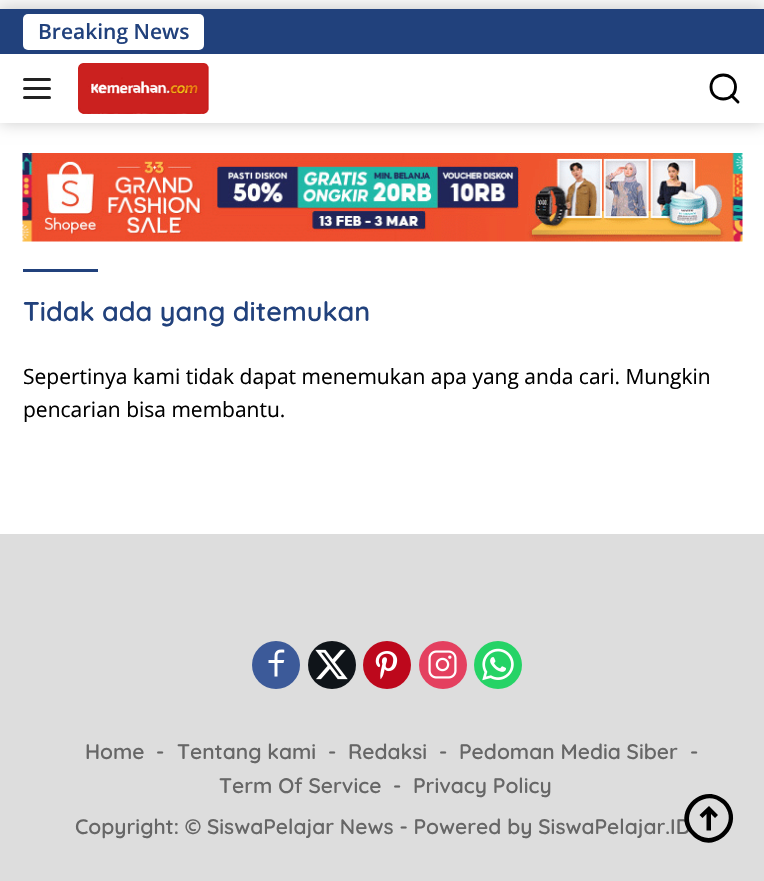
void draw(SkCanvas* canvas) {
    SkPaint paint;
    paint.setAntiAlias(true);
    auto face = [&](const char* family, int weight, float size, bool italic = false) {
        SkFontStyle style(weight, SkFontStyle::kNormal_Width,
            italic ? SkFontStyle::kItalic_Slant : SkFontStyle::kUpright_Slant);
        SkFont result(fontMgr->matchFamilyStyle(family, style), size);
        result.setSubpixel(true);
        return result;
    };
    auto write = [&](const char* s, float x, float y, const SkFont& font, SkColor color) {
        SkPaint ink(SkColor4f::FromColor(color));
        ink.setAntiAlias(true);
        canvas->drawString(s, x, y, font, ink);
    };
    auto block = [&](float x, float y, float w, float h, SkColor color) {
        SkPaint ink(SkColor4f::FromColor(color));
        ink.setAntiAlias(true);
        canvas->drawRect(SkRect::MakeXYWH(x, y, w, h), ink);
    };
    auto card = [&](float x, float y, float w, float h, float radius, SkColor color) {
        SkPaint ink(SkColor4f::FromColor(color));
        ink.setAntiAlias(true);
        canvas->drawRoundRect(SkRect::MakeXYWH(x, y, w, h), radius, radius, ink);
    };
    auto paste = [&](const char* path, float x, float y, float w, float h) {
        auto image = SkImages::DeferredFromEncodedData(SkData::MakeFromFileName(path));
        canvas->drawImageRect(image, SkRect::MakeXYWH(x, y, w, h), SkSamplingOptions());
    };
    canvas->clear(SkColorSetRGB(248, 248, 248));
    block(0, 123, 764, 411, SK_ColorWHITE);
    paint.setColor(SkColorSetARGB(51, 0, 0, 0));
    paint.setMaskFilter(SkMaskFilter::MakeBlur(kNormal_SkBlurStyle, 7.5f));
    canvas->drawRect(SkRect::MakeXYWH(0, 9, 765, 114), paint);
    paint.setMaskFilter(nullptr);
    block(0, 54, 764, 69, SK_ColorWHITE);
    block(0, 9, 764, 45, SkColorSetRGB(33, 65, 124));
    card(23, 14, 181, 36, 5, SK_ColorWHITE);
    auto kFont1 = face("Open Sans", 600, 21);
    write("Breaking News", 38, 39, kFont1, SkColorSetRGB(33, 65, 124));
    card(23, 78, 28, 3, 1.5f, SkColorSetRGB(34, 34, 34));
    card(23, 87, 28, 3, 1.5f, SkColorSetRGB(34, 34, 34));
    card(23, 96, 28, 3, 1.5f, SkColorSetRGB(34, 34, 34));
    paste("pic1.png", 78, 63, 131, 51);
    paint.setStyle(SkPaint::kStroke_Style);
    paint.setStrokeWidth(2.9f);
    paint.setStrokeCap(SkPaint::kRound_Cap);
    paint.setColor(SK_ColorBLACK);
    canvas->drawPath(SkPathBuilder().moveTo(738, 102).lineTo(731.5f, 95.5f).moveTo(735.5f, 87).cubicTo(735.5f, 103, 711, 103, 711, 87).cubicTo(711, 71, 735.5f, 71, 735.5f, 87).close().detach(), paint);
    paste("pic2.png", 22, 153, 721, 89);
    block(23, 269, 75, 3, SkColorSetRGB(33, 65, 124));
    auto kFont2 = face("Quicksand", 600, 27);
    write("Tidak ada yang ditemukan", 23, 321, kFont2, SkColorSetRGB(33, 65, 124));
    auto kFont3 = face("Open Sans", 400, 21);
    write("Sepertinya kami tidak dapat menemukan apa yang anda cari. Mungkin", 23, 384, kFont3, SK_ColorBLACK);
    write("pencarian bisa membantu.", 23, 417, kFont3, SK_ColorBLACK);
    block(0, 534, 764, 347, SkColorSetRGB(221, 221, 221));
    paint.setStyle(SkPaint::kFill_Style);
    paint.setColor(SkColorSetRGB(60, 90, 153));
    canvas->drawCircle(276, 665, 24, paint);
    paste("pic3.png", 268, 649, 17, 28);
    paint.setColor(SkColorSetRGB(15, 20, 25));
    canvas->drawCircle(332, 665, 24, paint);
    paste("pic4.png", 315, 649, 33, 31);
    paint.setColor(SkColorSetRGB(189, 8, 28));
    canvas->drawCircle(387, 665, 24, paint);
    paste("pic5.png", 375, 651, 23, 29);
    paint.setColor(SkColorSetRGB(228, 64, 95));
    canvas->drawCircle(443, 665, 24, paint);
    paste("pic6.png", 428, 650, 29, 29);
    paint.setColor(SkColorSetRGB(37, 211, 102));
    canvas->drawCircle(498, 665, 24, paint);
    paste("pic7.png", 482, 648, 32, 33);
    auto kFont4 = face("Quicksand", 600, 21);
    write("Home", 85, 759, kFont4, SkColorSetRGB(102, 102, 102));
    write("-", 156, 759, kFont4, SkColorSetRGB(102, 102, 102));
    write("Tentang kami", 177, 759, kFont4, SkColorSetRGB(102, 102, 102));
    write("-", 328, 759, kFont4, SkColorSetRGB(102, 102, 102));
    write("Redaksi", 348, 759, kFont4, SkColorSetRGB(102, 102, 102));
    write("-", 439, 759, kFont4, SkColorSetRGB(102, 102, 102));
    write("Pedoman Media Siber", 459, 759, kFont4, SkColorSetRGB(102, 102, 102));
    write("-", 690, 759, kFont4, SkColorSetRGB(102, 102, 102));
    write("Term Of Service", 219, 793, kFont4, SkColorSetRGB(102, 102, 102));
    write("-", 393, 793, kFont4, SkColorSetRGB(102, 102, 102));
    write("Privacy Policy", 413, 793, kFont4, SkColorSetRGB(102, 102, 102));
    write("Copyright: © SiswaPelajar News - Powered by SiswaPelajar.ID", 75, 834, kFont4, SkColorSetRGB(102, 102, 102));
    paint.setColor(SK_ColorBLACK);
    canvas->drawPath(SkPathBuilder().moveTo(715, 818).lineTo(718, 815).lineTo(709, 806).lineTo(699.5f, 815).lineTo(702.5f, 818).lineTo(706.5f, 814).lineTo(706.5f, 830.5f).lineTo(711, 830.5f).lineTo(711, 814).close().detach(), paint);
    canvas->drawPath(SkPathBuilder(SkPathFillType::kEvenOdd).moveTo(726, 801).cubicTo(703, 779, 669, 813, 692, 835).cubicTo(714, 858, 748, 824, 726, 801).close().moveTo(723, 804).cubicTo(704, 786, 677, 814, 695, 832).cubicTo(713, 850, 741, 823, 723, 804).close().detach(), paint);
}
